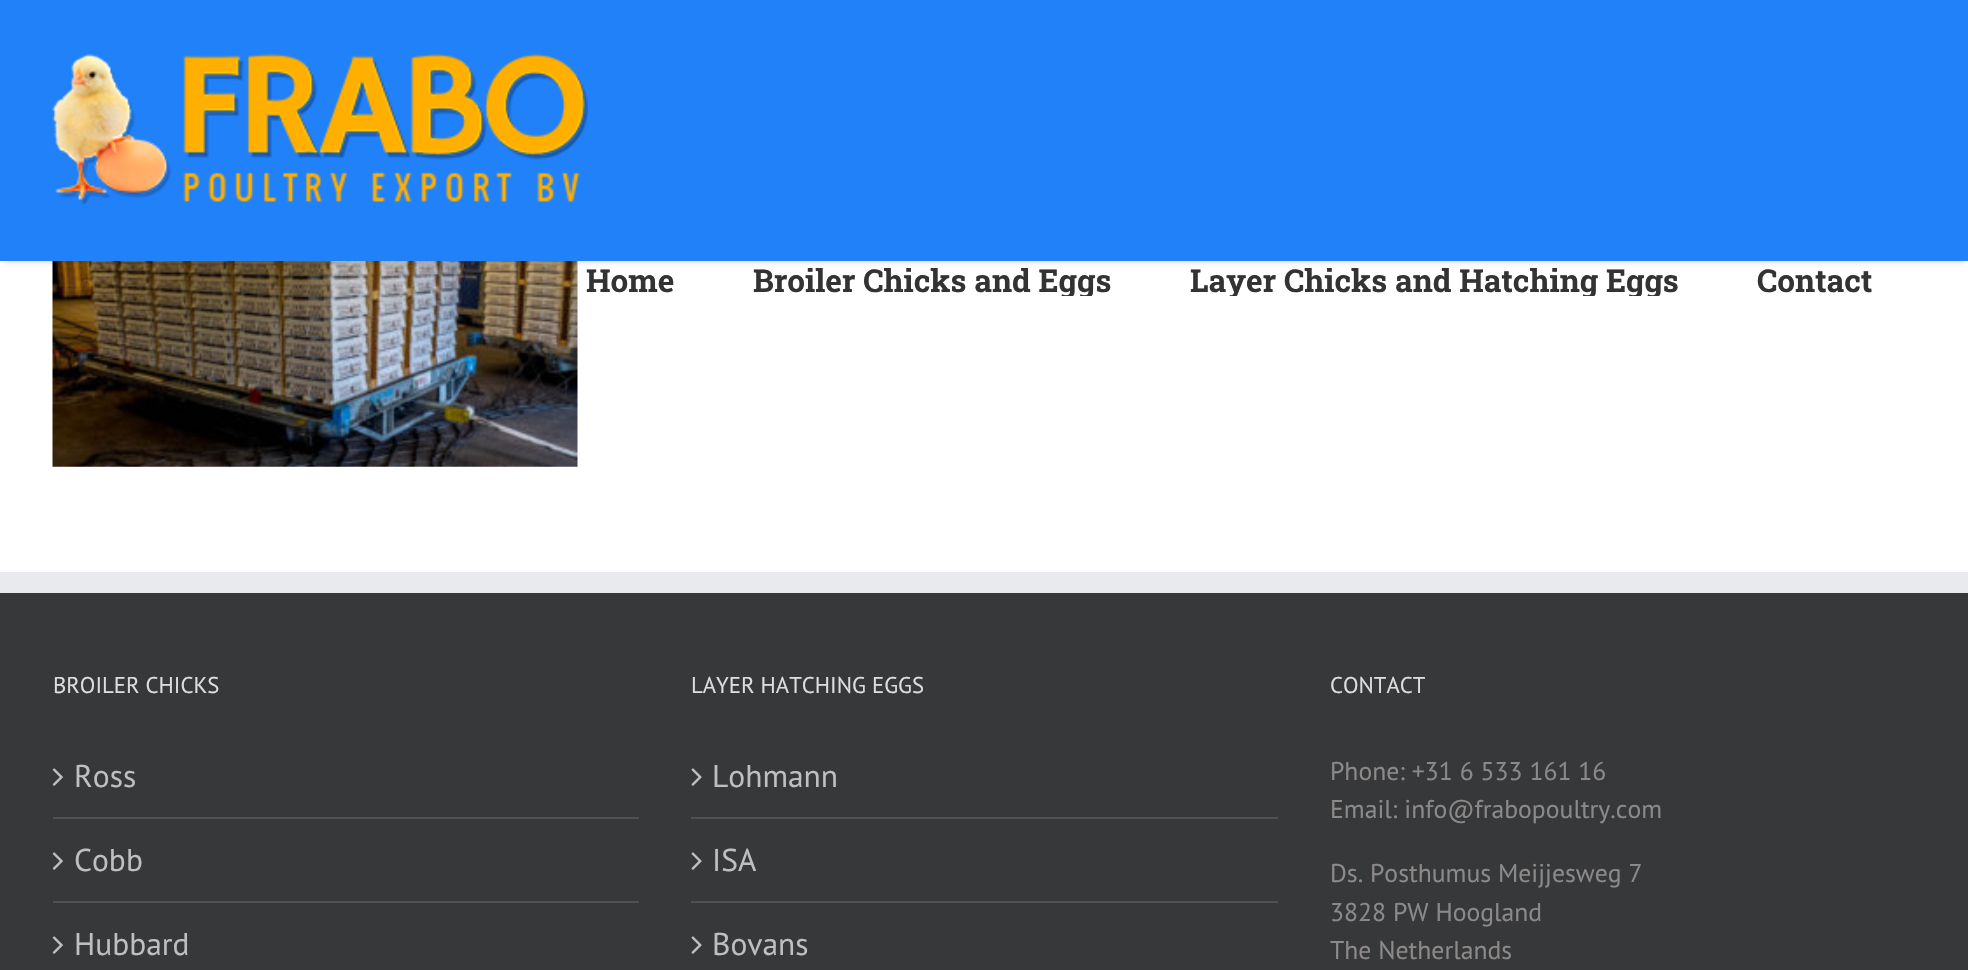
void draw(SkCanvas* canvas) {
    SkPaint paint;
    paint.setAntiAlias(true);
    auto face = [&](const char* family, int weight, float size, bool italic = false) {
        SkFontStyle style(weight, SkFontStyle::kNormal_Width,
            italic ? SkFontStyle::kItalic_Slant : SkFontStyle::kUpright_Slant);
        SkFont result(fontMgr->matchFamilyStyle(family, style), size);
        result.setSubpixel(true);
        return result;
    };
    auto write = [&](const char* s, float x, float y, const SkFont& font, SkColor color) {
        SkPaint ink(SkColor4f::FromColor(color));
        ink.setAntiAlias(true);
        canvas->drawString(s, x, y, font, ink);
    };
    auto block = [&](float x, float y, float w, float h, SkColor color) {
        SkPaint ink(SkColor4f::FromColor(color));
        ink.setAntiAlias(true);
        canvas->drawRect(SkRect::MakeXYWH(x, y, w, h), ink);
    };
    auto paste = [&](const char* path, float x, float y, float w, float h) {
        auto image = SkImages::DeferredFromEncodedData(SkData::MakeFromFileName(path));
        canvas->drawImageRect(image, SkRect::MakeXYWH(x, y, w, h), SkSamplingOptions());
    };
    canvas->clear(SK_ColorWHITE);
    paste("pic1.png", 52, 261, 526, 206);
    paint.setColor(SkColorSetARGB(31, 0, 0, 0));
    paint.setMaskFilter(SkMaskFilter::MakeBlur(kNormal_SkBlurStyle, 2.5f));
    canvas->drawRect(SkRect::MakeXYWH(5, 12, 1959, 251), paint);
    paint.setMaskFilter(nullptr);
    block(0, 0, 1968, 261, SkColorSetRGB(33, 129, 248));
    paste("pic2.png", 52, 54, 536, 151);
    auto kFont1 = face("Roboto Slab", 700, 31.5f);
    write("Home", 586, 292, kFont1, SkColorSetRGB(51, 51, 51));
    canvas->save();
    canvas->clipRect(SkRect::MakeXYWH(753, 259, 437, 37));
    write("Broiler Chicks and Eggs", 753, 292, kFont1, SkColorSetRGB(51, 51, 51));
    canvas->restore();
    canvas->save();
    canvas->clipRect(SkRect::MakeXYWH(1190, 259, 567, 37));
    write("Layer Chicks and Hatching Eggs", 1190, 292, kFont1, SkColorSetRGB(51, 51, 51));
    canvas->restore();
    write("Contact", 1757, 292, kFont1, SkColorSetRGB(51, 51, 51));
    block(0, 593, 1968, 377, SkColorSetRGB(54, 56, 57));
    block(0, 572, 1968, 21, SkColorSetRGB(233, 234, 238));
    auto kFont2 = face("PT Sans", 400, 22.75f);
    write("BROILER CHICKS", 53, 693, kFont2, SkColorSetRGB(221, 221, 221));
    block(53, 817, 586, 2, SkColorSetRGB(80, 81, 82));
    paste("pic3.png", 52, 768, 11, 18);
    auto kFont3 = face("PT Sans", 400, 31.5f);
    write("Ross", 74, 787, kFont3, SkColorSetRGB(191, 191, 191));
    block(53, 901, 586, 2, SkColorSetRGB(80, 81, 82));
    paste("pic3.png", 52, 852, 11, 18);
    write("Cobb", 74, 871, kFont3, SkColorSetRGB(191, 191, 191));
    paste("pic3.png", 52, 936, 11, 18);
    write("Hubbard", 74, 955, kFont3, SkColorSetRGB(191, 191, 191));
    write("LAYER HATCHING EGGS", 691, 693, kFont2, SkColorSetRGB(221, 221, 221));
    block(691, 817, 587, 2, SkColorSetRGB(80, 81, 82));
    paste("pic4.png", 691, 768, 11, 18);
    write("Lohmann", 712, 787, kFont3, SkColorSetRGB(191, 191, 191));
    block(691, 901, 587, 2, SkColorSetRGB(80, 81, 82));
    paste("pic4.png", 691, 852, 11, 18);
    write("ISA", 712, 871, kFont3, SkColorSetRGB(191, 191, 191));
    paste("pic4.png", 691, 936, 11, 18);
    write("Bovans", 712, 955, kFont3, SkColorSetRGB(191, 191, 191));
    write("CONTACT", 1330, 693, kFont2, SkColorSetRGB(221, 221, 221));
    auto kFont4 = face("PT Sans", 400, 25.7f);
    write("Phone: +31 6 533 161 16", 1330, 780, kFont4, SkColorSetRGB(140, 137, 137));
    write("Email: info@frabopoultry.com", 1330, 818, kFont4, SkColorSetRGB(140, 137, 137));
    write("Ds. Posthumus Meijjesweg 7", 1330, 882, kFont4, SkColorSetRGB(140, 137, 137));
    write("3828 PW Hoogland", 1330, 921, kFont4, SkColorSetRGB(140, 137, 137));
    write("The Netherlands", 1330, 959, kFont4, SkColorSetRGB(140, 137, 137));
}
